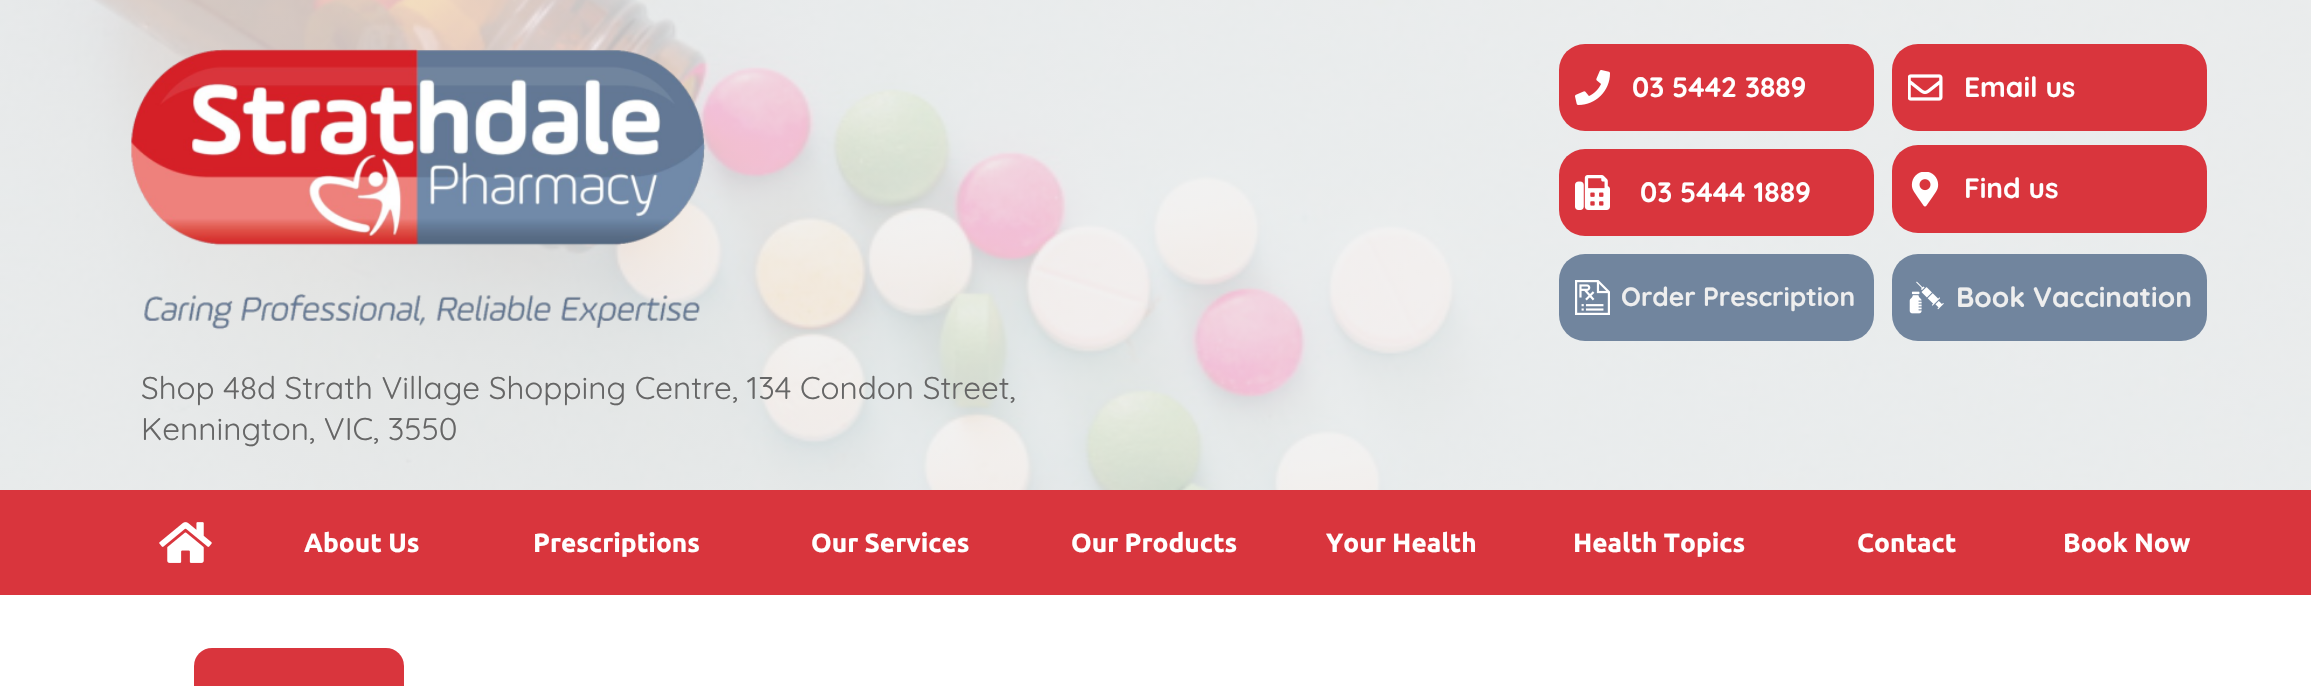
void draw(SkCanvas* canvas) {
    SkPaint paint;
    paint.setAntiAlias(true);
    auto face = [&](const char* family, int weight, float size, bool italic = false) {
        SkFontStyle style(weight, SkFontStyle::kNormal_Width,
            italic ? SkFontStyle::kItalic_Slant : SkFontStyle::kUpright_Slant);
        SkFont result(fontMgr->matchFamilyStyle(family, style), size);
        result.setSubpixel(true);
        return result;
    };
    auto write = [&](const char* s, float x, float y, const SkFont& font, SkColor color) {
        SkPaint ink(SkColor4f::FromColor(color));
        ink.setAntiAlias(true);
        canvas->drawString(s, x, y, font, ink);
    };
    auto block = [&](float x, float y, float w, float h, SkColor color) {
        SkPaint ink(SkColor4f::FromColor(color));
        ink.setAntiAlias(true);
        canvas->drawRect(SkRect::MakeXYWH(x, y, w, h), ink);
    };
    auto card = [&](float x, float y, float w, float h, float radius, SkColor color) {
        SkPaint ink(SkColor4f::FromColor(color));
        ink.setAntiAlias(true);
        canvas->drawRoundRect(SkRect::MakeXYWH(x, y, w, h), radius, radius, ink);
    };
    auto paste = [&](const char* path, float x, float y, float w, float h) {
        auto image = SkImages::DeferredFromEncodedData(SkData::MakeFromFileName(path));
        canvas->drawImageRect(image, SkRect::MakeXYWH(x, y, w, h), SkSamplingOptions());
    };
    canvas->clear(SK_ColorWHITE);
    paste("pic1.png", 0, 0, 2311, 490);
    paste("pic2.png", 131, 49, 575, 281);
    card(1559, 44, 315, 87, 26, SkColorSetRGB(217, 53, 61));
    paste("pic3.png", 1575, 70, 35, 35);
    auto kFont1 = face("Quicksand", 700, 28);
    write("03 5442 3889", 1632, 97, kFont1, SK_ColorWHITE);
    card(1892, 44, 315, 87, 26, SkColorSetRGB(217, 53, 61));
    paste("pic4.png", 1908, 74, 35, 27);
    write("Email us", 1964, 97, kFont1, SK_ColorWHITE);
    card(1559, 149, 315, 87, 26, SkColorSetRGB(217, 53, 61));
    paste("pic5.png", 1575, 175, 35, 35);
    write("03 5444 1889", 1640, 202, kFont1, SK_ColorWHITE);
    card(1892, 145, 315, 88, 26, SkColorSetRGB(217, 53, 61));
    paste("pic6.png", 1911, 172, 28, 35);
    write("Find us", 1964, 198, kFont1, SK_ColorWHITE);
    card(1559, 254, 315, 87, 26, SkColorSetRGB(113, 133, 158));
    paste("pic7.png", 1575, 280, 35, 35);
    auto kFont2 = face("Quicksand", 700, 26.25f);
    write("Order Prescription", 1621, 306, kFont2, SkColorSetRGB(238, 238, 238));
    card(1892, 254, 315, 87, 26, SkColorSetRGB(113, 133, 158));
    paste("pic8.png", 1909, 281, 35, 33);
    write("Book Vaccination", 1956, 307, kFont1, SkColorSetRGB(238, 238, 238));
    auto kFont3 = face("Quicksand", 400, 31.5f);
    write("Shop 48d Strath Village Shopping Centre, 134 Condon Street,", 141, 399, kFont3, SkColorSetRGB(102, 102, 102));
    write("Kennington, VIC, 3550", 141, 440, kFont3, SkColorSetRGB(102, 102, 102));
    block(0, 490, 2311, 105, SkColorSetRGB(217, 53, 61));
    paste("pic9.png", 159, 522, 53, 41);
    auto kFont4 = face("Ubuntu", 700, 26.25f);
    write("About Us", 304, 552, kFont4, SK_ColorWHITE);
    write("Prescriptions", 533, 552, kFont4, SK_ColorWHITE);
    write("Our Services", 811, 552, kFont4, SK_ColorWHITE);
    write("Our Products", 1071, 552, kFont4, SK_ColorWHITE);
    write("Your Health", 1326, 552, kFont4, SK_ColorWHITE);
    write("Health Topics", 1573, 552, kFont4, SK_ColorWHITE);
    write("Contact", 1857, 552, kFont4, SK_ColorWHITE);
    write("Book Now", 2063, 552, kFont4, SK_ColorWHITE);
    card(194, 648, 210, 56, 18, SkColorSetRGB(217, 53, 61));
}
